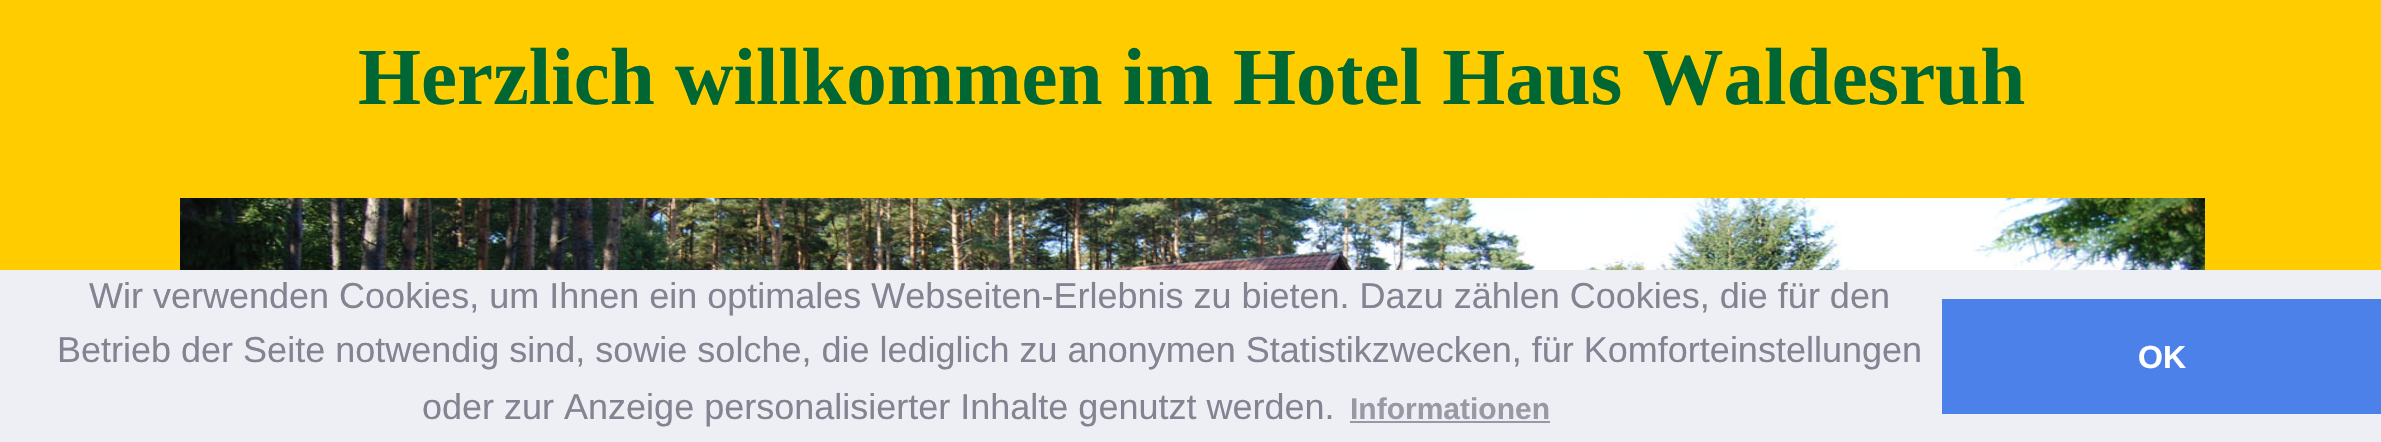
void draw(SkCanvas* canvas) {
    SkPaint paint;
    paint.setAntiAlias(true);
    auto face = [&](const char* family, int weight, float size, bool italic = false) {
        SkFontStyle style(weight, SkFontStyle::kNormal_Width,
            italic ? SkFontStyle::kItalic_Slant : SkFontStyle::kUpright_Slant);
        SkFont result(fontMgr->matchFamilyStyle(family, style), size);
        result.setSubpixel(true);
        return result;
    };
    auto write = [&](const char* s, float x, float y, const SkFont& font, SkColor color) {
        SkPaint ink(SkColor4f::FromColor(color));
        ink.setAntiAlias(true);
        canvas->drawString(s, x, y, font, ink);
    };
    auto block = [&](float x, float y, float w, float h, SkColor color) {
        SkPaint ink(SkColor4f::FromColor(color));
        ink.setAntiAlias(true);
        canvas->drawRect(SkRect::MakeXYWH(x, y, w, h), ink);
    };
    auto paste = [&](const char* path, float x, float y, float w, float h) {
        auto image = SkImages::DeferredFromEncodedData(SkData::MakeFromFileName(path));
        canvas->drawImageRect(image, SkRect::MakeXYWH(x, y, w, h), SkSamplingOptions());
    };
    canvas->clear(SkColorSetRGB(255, 204, 0));
    auto kFont1 = face("Liberation Serif", 700, 81);
    write("Herzlich willkommen im Hotel Haus Waldesruh", 358, 104, kFont1, SkColorSetRGB(0, 102, 51));
    paste("pic1.png", 180, 198, 2025, 72);
    block(0, 270, 2381, 172, SkColorSetRGB(237, 239, 245));
    auto kFont2 = face("Liberation Sans", 400, 36);
    write("Wir verwenden Cookies, um Ihnen ein optimales Webseiten-Erlebnis zu bieten. Dazu zählen Cookies, die für den", 89, 308, kFont2, SkColorSetRGB(131, 131, 145));
    write("Betrieb der Seite notwendig sind, sowie solche, die lediglich zu anonymen Statistikzwecken, für Komforteinstellungen", 57, 362, kFont2, SkColorSetRGB(131, 131, 145));
    write("oder zur Anzeige personalisierter Inhalte genutzt werden.", 422, 419, kFont2, SkColorSetRGB(131, 131, 145));
    auto kFont3 = face("Liberation Sans", 700, 30);
    write("Informationen", 1350, 419, kFont3, SkColorSetRGB(152, 153, 165));
    block(1350, 421, 200, 2, SkColorSetRGB(152, 153, 165));
    block(1942, 299, 439, 115, SkColorSetRGB(75, 129, 232));
    auto kFont4 = face("Liberation Sans", 700, 32);
    write("OK", 2138, 368, kFont4, SK_ColorWHITE);
}
